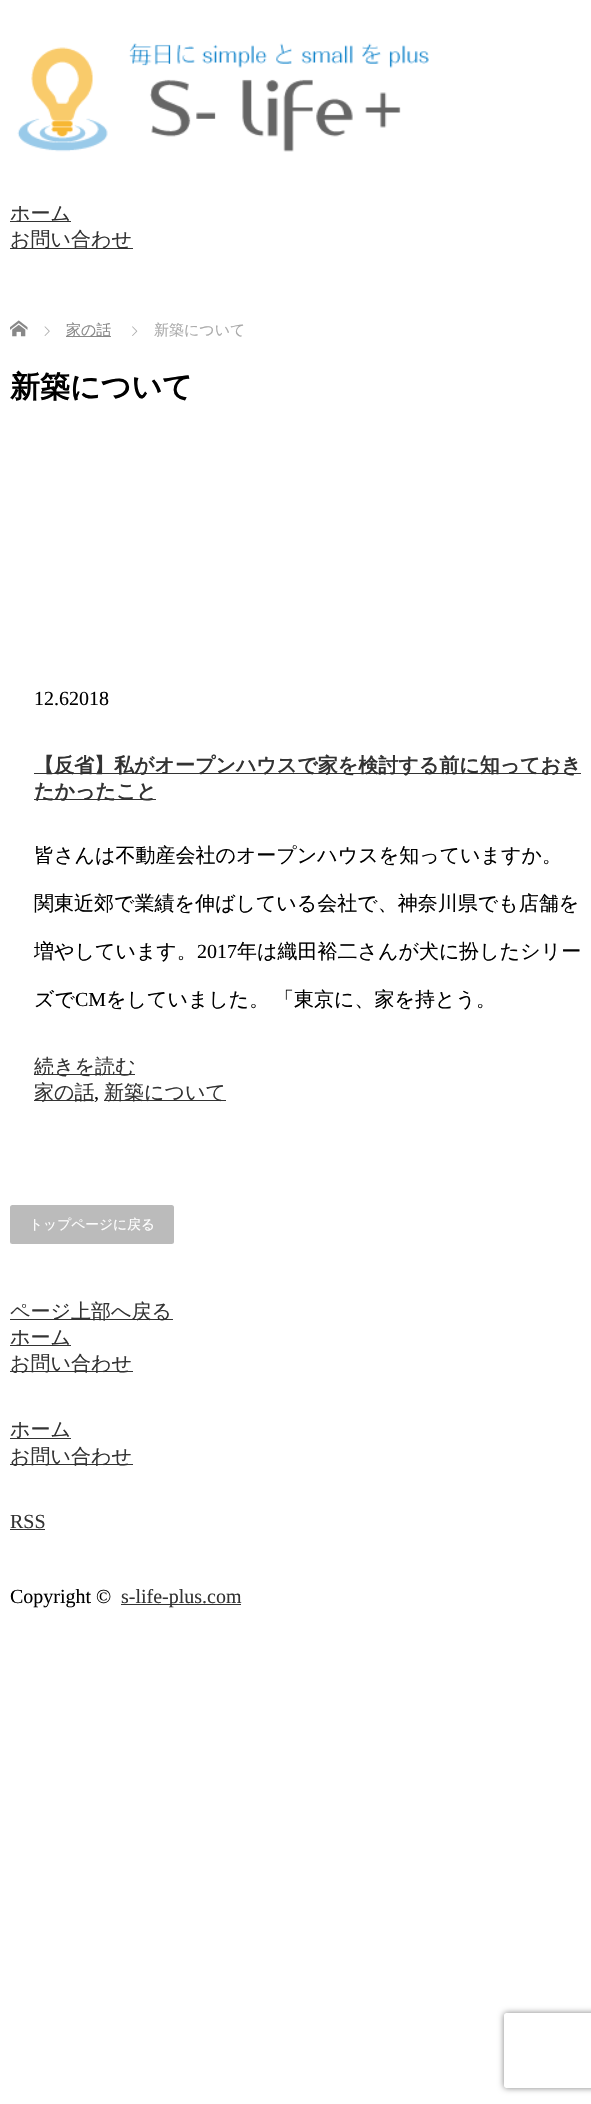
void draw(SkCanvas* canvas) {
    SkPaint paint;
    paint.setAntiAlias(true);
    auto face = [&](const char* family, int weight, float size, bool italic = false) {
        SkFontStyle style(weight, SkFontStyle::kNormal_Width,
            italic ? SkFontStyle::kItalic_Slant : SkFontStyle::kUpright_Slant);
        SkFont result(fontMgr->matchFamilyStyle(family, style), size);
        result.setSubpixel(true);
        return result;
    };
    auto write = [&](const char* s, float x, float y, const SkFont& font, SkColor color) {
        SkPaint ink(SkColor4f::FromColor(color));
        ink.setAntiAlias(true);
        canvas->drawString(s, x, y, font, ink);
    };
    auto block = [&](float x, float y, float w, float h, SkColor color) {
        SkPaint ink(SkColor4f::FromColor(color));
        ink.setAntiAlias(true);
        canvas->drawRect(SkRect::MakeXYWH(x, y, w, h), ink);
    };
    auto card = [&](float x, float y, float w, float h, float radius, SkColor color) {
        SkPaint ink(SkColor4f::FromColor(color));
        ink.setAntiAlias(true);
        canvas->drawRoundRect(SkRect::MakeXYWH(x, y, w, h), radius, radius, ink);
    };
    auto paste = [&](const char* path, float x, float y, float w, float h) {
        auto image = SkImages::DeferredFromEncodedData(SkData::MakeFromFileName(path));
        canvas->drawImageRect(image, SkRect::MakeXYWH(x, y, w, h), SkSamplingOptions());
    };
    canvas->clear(SK_ColorWHITE);
    paste("pic1.png", 17, 43, 412, 109);
    block(10, 221, 61, 1, SkColorSetRGB(51, 51, 51));
    auto kFont1 = face("WenQuanYi Zen Hei", 500, 20);
    write("ホーム", 10, 220, kFont1, SkColorSetRGB(51, 51, 51));
    block(10, 248, 123, 1, SkColorSetRGB(51, 51, 51));
    write("お問い合わせ", 10, 246, kFont1, SkColorSetRGB(51, 51, 51));
    paste("pic2.png", 10, 320, 18, 17);
    paste("pic3.png", 44, 326, 6, 10);
    block(66, 336, 45, 1, SkColorSetRGB(136, 136, 136));
    auto kFont2 = face("WenQuanYi Zen Hei", 500, 15);
    write("家の話", 66, 335, kFont2, SkColorSetRGB(136, 136, 136));
    paste("pic4.png", 132, 326, 6, 10);
    write("新築について", 154, 335, kFont2, SkColorSetRGB(170, 170, 170));
    auto kFont3 = face("WenQuanYi Zen Hei", 700, 30);
    write("新築について", 10, 397, kFont3, SK_ColorBLACK);
    auto kFont4 = face("Liberation Serif", 400, 20);
    write("12.62018", 34, 705, kFont4, SK_ColorBLACK);
    block(34, 773, 547, 1, SkColorSetRGB(51, 51, 51));
    auto kFont5 = face("WenQuanYi Zen Hei", 700, 20);
    write("【反省】私がオープンハウスで家を検討する前に知っておき", 34, 772, kFont5, SkColorSetRGB(51, 51, 51));
    block(34, 799, 122, 1, SkColorSetRGB(51, 51, 51));
    write("たかったこと", 34, 798, kFont5, SkColorSetRGB(51, 51, 51));
    write("皆さんは不動産会社のオープンハウスを知っていますか。", 34, 862, kFont1, SK_ColorBLACK);
    write("関東近郊で業績を伸ばしている会社で、神奈川県でも店舗を", 34, 910, kFont1, SK_ColorBLACK);
    write("増やしています。", 34, 958, kFont1, SK_ColorBLACK);
    write("2017", 197, 958, kFont4, SK_ColorBLACK);
    write("年は織田裕二さんが犬に扮したシリー", 237, 958, kFont1, SK_ColorBLACK);
    write("ズで", 34, 1006, kFont1, SK_ColorBLACK);
    write("CM", 75, 1006, kFont4, SK_ColorBLACK);
    write("をしていました。", 106, 1006, kFont1, SK_ColorBLACK);
    write("「東京に、家を持とう。", 274, 1006, kFont1, SK_ColorBLACK);
    block(34, 1074, 101, 1, SkColorSetRGB(51, 51, 51));
    write("続きを読む", 34, 1073, kFont1, SkColorSetRGB(51, 51, 51));
    block(34, 1100, 60, 1, SkColorSetRGB(51, 51, 51));
    write("家の話", 34, 1099, kFont1, SkColorSetRGB(51, 51, 51));
    write(",", 94, 1099, kFont4, SK_ColorBLACK);
    block(104, 1100, 122, 1, SkColorSetRGB(51, 51, 51));
    write("新築について", 104, 1099, kFont1, SkColorSetRGB(51, 51, 51));
    card(10, 1205, 164, 39, 2.5f, SkColorSetRGB(187, 187, 187));
    auto kFont6 = face("WenQuanYi Zen Hei", 500, 13.75f);
    write("トップページに戻る", 29, 1229, kFont6, SK_ColorWHITE);
    block(10, 1319, 163, 1, SkColorSetRGB(51, 51, 51));
    write("ページ上部へ戻る", 10, 1318, kFont1, SkColorSetRGB(51, 51, 51));
    block(10, 1345, 61, 1, SkColorSetRGB(51, 51, 51));
    write("ホーム", 10, 1344, kFont1, SkColorSetRGB(51, 51, 51));
    block(10, 1371, 123, 1, SkColorSetRGB(51, 51, 51));
    write("お問い合わせ", 10, 1370, kFont1, SkColorSetRGB(51, 51, 51));
    block(10, 1438, 61, 1, SkColorSetRGB(51, 51, 51));
    write("ホーム", 10, 1436, kFont1, SkColorSetRGB(51, 51, 51));
    block(10, 1464, 123, 1, SkColorSetRGB(51, 51, 51));
    write("お問い合わせ", 10, 1463, kFont1, SkColorSetRGB(51, 51, 51));
    write("RSS", 10, 1528, kFont4, SkColorSetRGB(51, 51, 51));
    block(10, 1529, 35, 1, SkColorSetRGB(51, 51, 51));
    write("Copyright ©", 10, 1603, kFont4, SK_ColorBLACK);
    block(121, 1604, 120, 1, SkColorSetRGB(51, 51, 51));
    write("s-life-plus.com", 121, 1603, kFont4, SkColorSetRGB(51, 51, 51));
    canvas->save();
    canvas->clipPath(SkPathBuilder(SkPathFillType::kEvenOdd).moveTo(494, 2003).lineTo(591, 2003).lineTo(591, 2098).lineTo(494, 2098).close().moveTo(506.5f, 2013).lineTo(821.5f, 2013).cubicTo(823, 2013, 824, 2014, 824, 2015.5f).lineTo(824, 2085.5f).cubicTo(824, 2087, 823, 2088, 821.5f, 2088).lineTo(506.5f, 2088).cubicTo(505, 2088, 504, 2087, 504, 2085.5f).lineTo(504, 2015.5f).cubicTo(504, 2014, 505, 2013, 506.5f, 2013).close().detach(), true);
    paint.setColor(SkColorSetRGB(128, 128, 128));
    paint.setMaskFilter(SkMaskFilter::MakeBlur(kNormal_SkBlurStyle, 3));
    canvas->drawRoundRect(SkRect::MakeXYWH(504, 2013, 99, 75), 2.5f, 2.5f, paint);
    paint.setMaskFilter(nullptr);
    canvas->restore();
}
